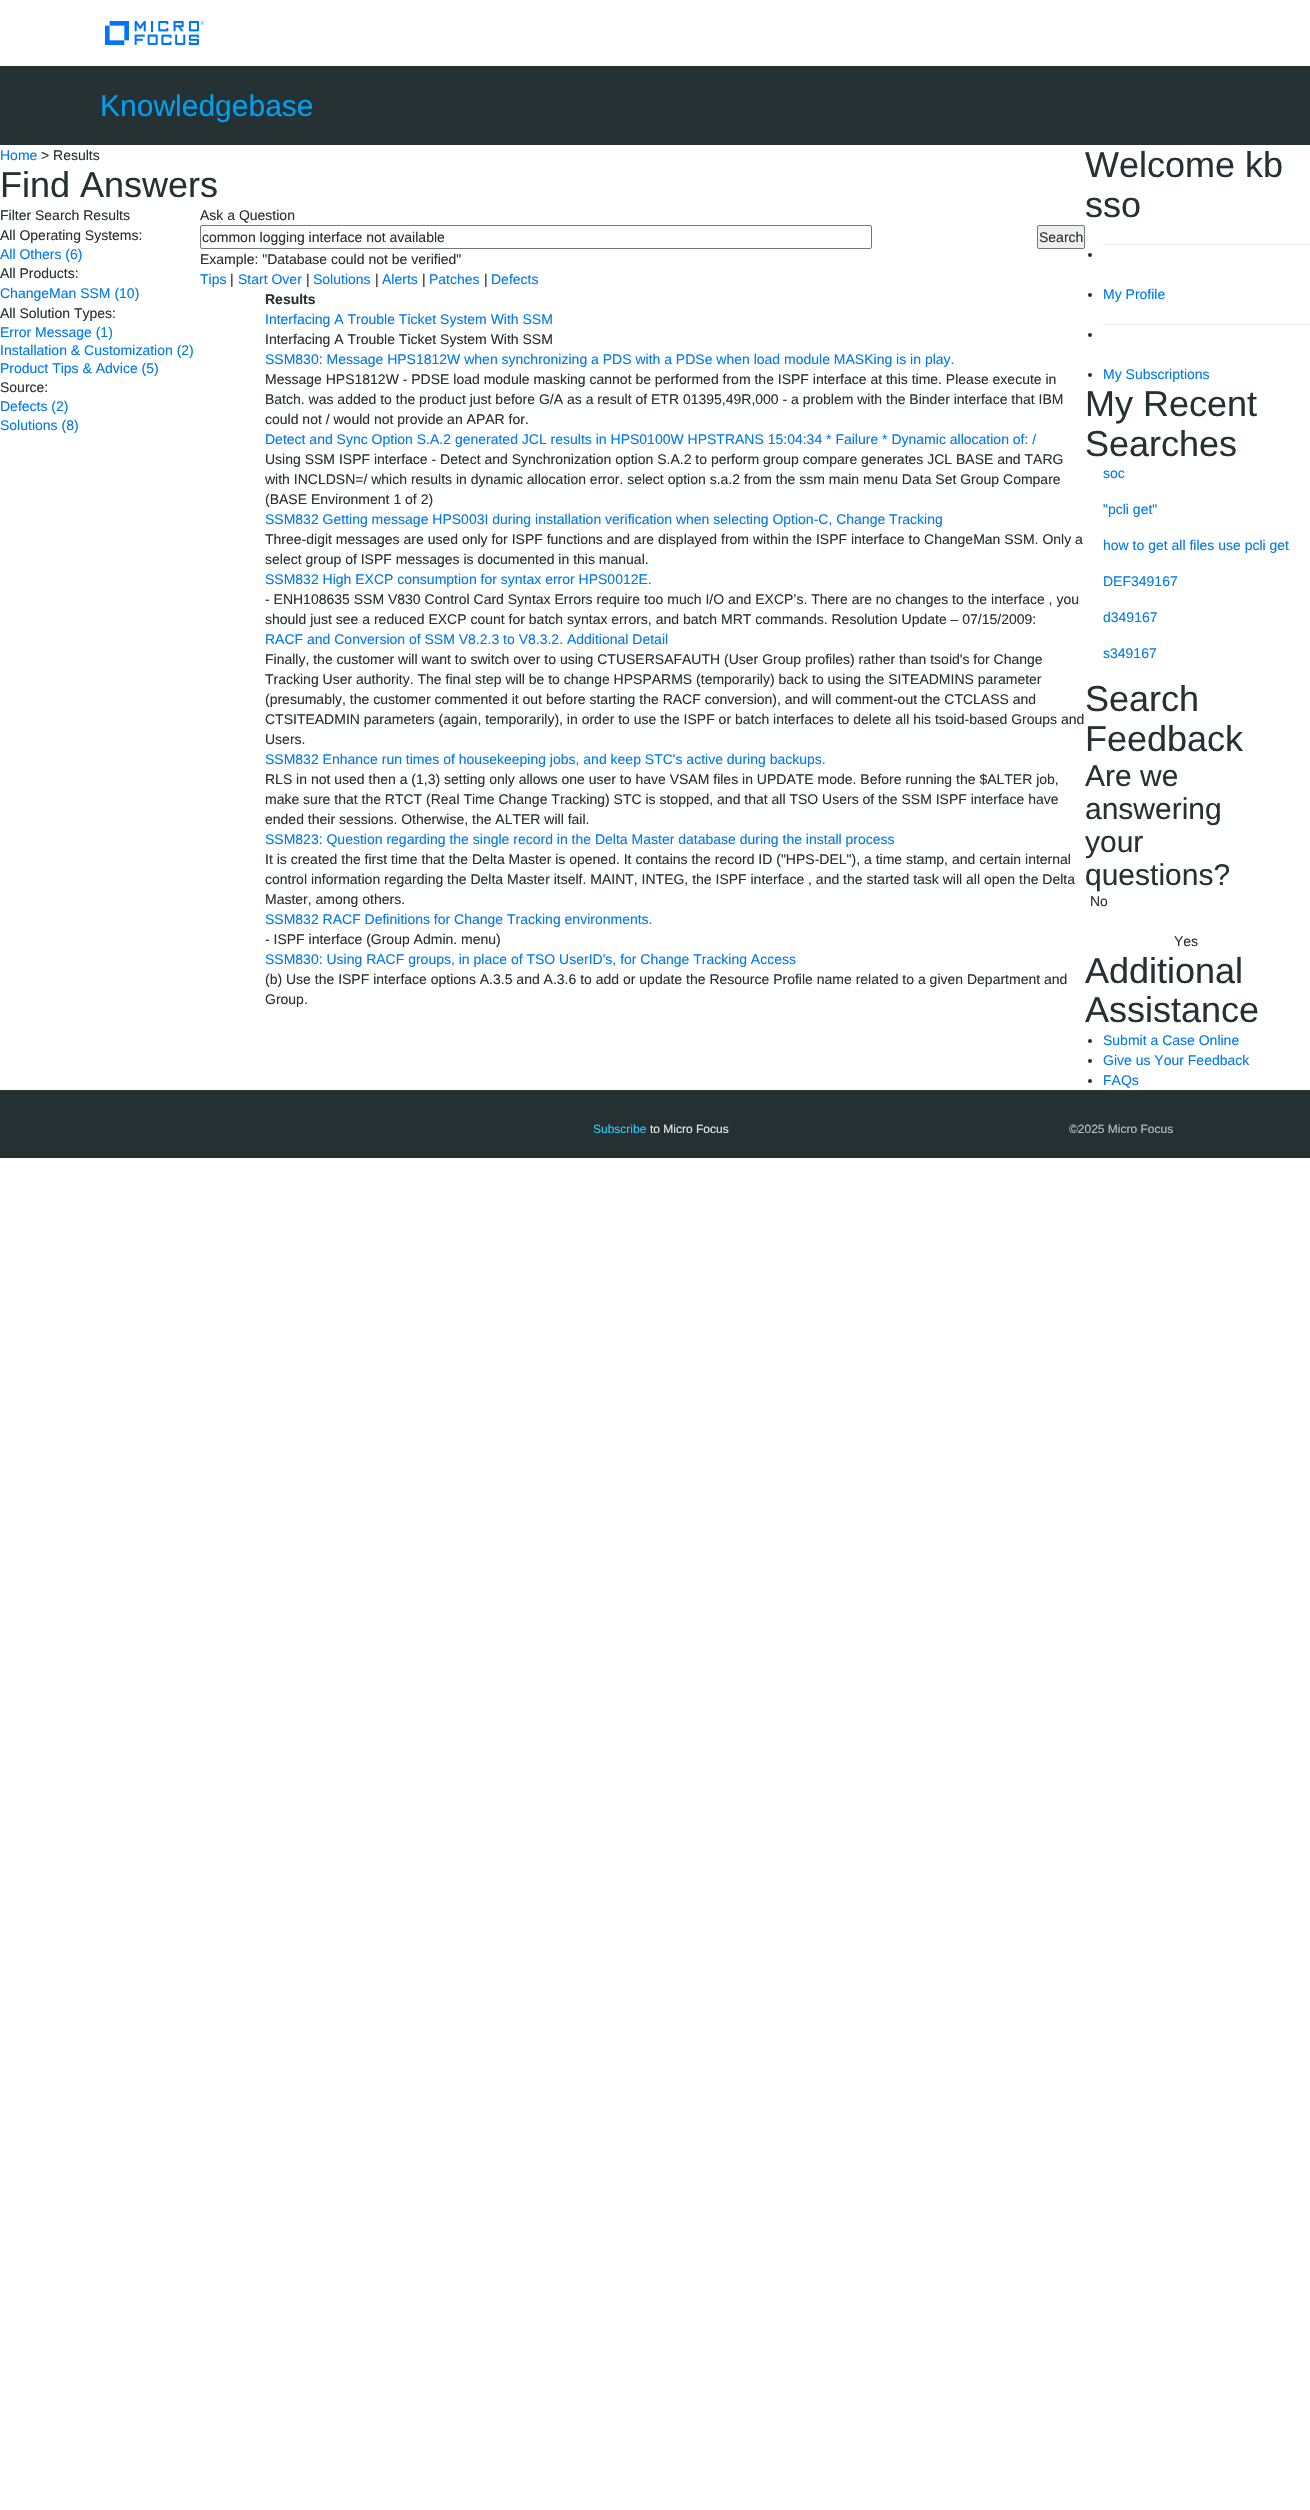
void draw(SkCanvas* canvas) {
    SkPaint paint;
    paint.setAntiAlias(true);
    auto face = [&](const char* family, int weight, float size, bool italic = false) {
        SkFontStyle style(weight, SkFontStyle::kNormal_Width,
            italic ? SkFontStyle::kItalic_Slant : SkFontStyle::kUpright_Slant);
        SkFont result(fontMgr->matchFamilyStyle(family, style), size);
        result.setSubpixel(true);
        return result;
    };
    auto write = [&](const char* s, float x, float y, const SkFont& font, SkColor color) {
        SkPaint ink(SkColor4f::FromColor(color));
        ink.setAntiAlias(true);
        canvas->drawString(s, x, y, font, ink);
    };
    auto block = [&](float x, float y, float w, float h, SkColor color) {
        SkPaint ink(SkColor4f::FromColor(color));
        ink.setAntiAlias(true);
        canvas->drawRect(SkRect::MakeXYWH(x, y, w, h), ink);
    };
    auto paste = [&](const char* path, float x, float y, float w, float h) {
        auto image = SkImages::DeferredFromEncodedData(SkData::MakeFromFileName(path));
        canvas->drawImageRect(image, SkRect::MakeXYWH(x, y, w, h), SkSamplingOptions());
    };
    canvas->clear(SK_ColorWHITE);
    paste("pic1.png", 105, 20, 100, 26);
    block(0, 66, 1310, 79, SkColorSetRGB(38, 49, 51));
    auto kFont1 = face("Liberation Sans", 400, 30);
    write("Knowledgebase", 100, 116, kFont1, SkColorSetRGB(0, 160, 239));
    auto kFont2 = face("Liberation Sans", 400, 14);
    write("Home", 0, 160, kFont2, SkColorSetRGB(0, 120, 239));
    write("> Results", 41, 160, kFont2, SkColorSetRGB(38, 49, 51));
    auto kFont3 = face("Liberation Sans", 400, 36);
    write("Find Answers", 0, 197, kFont3, SkColorSetRGB(38, 49, 51));
    write("Filter Search Results", 0, 220, kFont2, SkColorSetRGB(38, 49, 51));
    write("All Operating Systems:", 0, 240, kFont2, SkColorSetRGB(38, 49, 51));
    write("All Others (6)", 0, 259, kFont2, SkColorSetRGB(0, 120, 239));
    write("All Products:", 0, 278, kFont2, SkColorSetRGB(38, 49, 51));
    write("ChangeMan SSM (10)", 0, 298, kFont2, SkColorSetRGB(0, 120, 239));
    write("All Solution Types:", 0, 318, kFont2, SkColorSetRGB(38, 49, 51));
    write("Error Message (1)", 0, 337, kFont2, SkColorSetRGB(0, 120, 239));
    write("Installation & Customization (2)", 0, 355, kFont2, SkColorSetRGB(0, 120, 239));
    write("Product Tips & Advice (5)", 0, 373, kFont2, SkColorSetRGB(0, 120, 239));
    write("Source:", 0, 392, kFont2, SkColorSetRGB(38, 49, 51));
    write("Defects (2)", 0, 411, kFont2, SkColorSetRGB(0, 120, 239));
    write("Solutions (8)", 0, 430, kFont2, SkColorSetRGB(0, 120, 239));
    write("Ask a Question", 200, 220, kFont2, SkColorSetRGB(38, 49, 51));
    paint.setStyle(SkPaint::kStroke_Style);
    paint.setStrokeWidth(1);
    paint.setColor(SkColorSetRGB(118, 118, 118));
    canvas->drawRoundRect(SkRect::MakeXYWH(200.5f, 225.5f, 671, 23), 1.5f, 1.5f, paint);
    write("common logging interface not available", 202, 242, kFont2, SkColorSetRGB(38, 49, 51));
    paint.setStyle(SkPaint::kFill_Style);
    paint.setColor(SkColorSetRGB(239, 239, 239));
    canvas->drawRoundRect(SkRect::MakeXYWH(1037.5f, 225.5f, 47, 23), 1.5f, 1.5f, paint);
    paint.setStyle(SkPaint::kStroke_Style);
    paint.setColor(SkColorSetRGB(118, 118, 118));
    canvas->drawRoundRect(SkRect::MakeXYWH(1037.5f, 225.5f, 47, 23), 1.5f, 1.5f, paint);
    write("Search", 1039, 242, kFont2, SkColorSetRGB(38, 49, 51));
    write("Example: \"Database could not be verified\"", 200, 264, kFont2, SkColorSetRGB(38, 49, 51));
    write("Tips", 200, 284, kFont2, SkColorSetRGB(0, 120, 239));
    write("|", 230, 284, kFont2, SkColorSetRGB(38, 49, 51));
    write("Start Over", 238, 284, kFont2, SkColorSetRGB(0, 120, 239));
    write("|", 306, 284, kFont2, SkColorSetRGB(38, 49, 51));
    write("Solutions", 313, 284, kFont2, SkColorSetRGB(0, 120, 239));
    write("|", 375, 284, kFont2, SkColorSetRGB(38, 49, 51));
    write("Alerts", 382, 284, kFont2, SkColorSetRGB(0, 120, 239));
    write("|", 422, 284, kFont2, SkColorSetRGB(38, 49, 51));
    write("Patches", 429, 284, kFont2, SkColorSetRGB(0, 120, 239));
    write("|", 484, 284, kFont2, SkColorSetRGB(38, 49, 51));
    write("Defects", 491, 284, kFont2, SkColorSetRGB(0, 120, 239));
    auto kFont4 = face("Liberation Sans", 700, 14);
    write("Results", 265, 304, kFont4, SkColorSetRGB(38, 49, 51));
    write("Interfacing A Trouble Ticket System With SSM", 265, 324, kFont2, SkColorSetRGB(0, 120, 239));
    write("Interfacing A Trouble Ticket System With SSM", 265, 344, kFont2, SkColorSetRGB(38, 49, 51));
    write("SSM830: Message HPS1812W when synchronizing a PDS with a PDSe when load module MASKing is in play.", 265, 364, kFont2, SkColorSetRGB(0, 120, 239));
    write("Message HPS1812W - PDSE load module masking cannot be performed from the ISPF interface at this time. Please execute in", 265, 384, kFont2, SkColorSetRGB(38, 49, 51));
    write("Batch. was added to the product just before G/A as a result of ETR 01395,49R,000 - a problem with the Binder interface that IBM", 265, 404, kFont2, SkColorSetRGB(38, 49, 51));
    write("could not / would not provide an APAR for.", 265, 424, kFont2, SkColorSetRGB(38, 49, 51));
    write("Detect and Sync Option S.A.2 generated JCL results in HPS0100W HPSTRANS 15:04:34 * Failure * Dynamic allocation of: /", 265, 444, kFont2, SkColorSetRGB(0, 120, 239));
    write("Using SSM ISPF interface - Detect and Synchronization option S.A.2 to perform group compare generates JCL BASE and TARG", 265, 464, kFont2, SkColorSetRGB(38, 49, 51));
    write("with INCLDSN=/ which results in dynamic allocation error. select option s.a.2 from the ssm main menu Data Set Group Compare", 265, 484, kFont2, SkColorSetRGB(38, 49, 51));
    write("(BASE Environment 1 of 2)", 265, 504, kFont2, SkColorSetRGB(38, 49, 51));
    write("SSM832 Getting message HPS003I during installation verification when selecting Option-C, Change Tracking", 265, 524, kFont2, SkColorSetRGB(0, 120, 239));
    write("Three-digit messages are used only for ISPF functions and are displayed from within the ISPF interface to ChangeMan SSM. Only a", 265, 544, kFont2, SkColorSetRGB(38, 49, 51));
    write("select group of ISPF messages is documented in this manual.", 265, 564, kFont2, SkColorSetRGB(38, 49, 51));
    write("SSM832 High EXCP consumption for syntax error HPS0012E.", 265, 584, kFont2, SkColorSetRGB(0, 120, 239));
    write("- ENH108635 SSM V830 Control Card Syntax Errors require too much I/O and EXCP’s. There are no changes to the interface , you", 265, 604, kFont2, SkColorSetRGB(38, 49, 51));
    write("should just see a reduced EXCP count for batch syntax errors, and batch MRT commands. Resolution Update – 07/15/2009:", 265, 624, kFont2, SkColorSetRGB(38, 49, 51));
    write("RACF and Conversion of SSM V8.2.3 to V8.3.2. Additional Detail", 265, 644, kFont2, SkColorSetRGB(0, 120, 239));
    write("Finally, the customer will want to switch over to using CTUSERSAFAUTH (User Group profiles) rather than tsoid's for Change", 265, 664, kFont2, SkColorSetRGB(38, 49, 51));
    write("Tracking User authority. The final step will be to change HPSPARMS (temporarily) back to using the SITEADMINS parameter", 265, 684, kFont2, SkColorSetRGB(38, 49, 51));
    write("(presumably, the customer commented it out before starting the RACF conversion), and will comment-out the CTCLASS and", 265, 704, kFont2, SkColorSetRGB(38, 49, 51));
    write("CTSITEADMIN parameters (again, temporarily), in order to use the ISPF or batch interfaces to delete all his tsoid-based Groups and", 265, 724, kFont2, SkColorSetRGB(38, 49, 51));
    write("Users.", 265, 744, kFont2, SkColorSetRGB(38, 49, 51));
    write("SSM832 Enhance run times of housekeeping jobs, and keep STC's active during backups.", 265, 764, kFont2, SkColorSetRGB(0, 120, 239));
    write("RLS in not used then a (1,3) setting only allows one user to have VSAM files in UPDATE mode. Before running the $ALTER job,", 265, 784, kFont2, SkColorSetRGB(38, 49, 51));
    write("make sure that the RTCT (Real Time Change Tracking) STC is stopped, and that all TSO Users of the SSM ISPF interface have", 265, 804, kFont2, SkColorSetRGB(38, 49, 51));
    write("ended their sessions. Otherwise, the ALTER will fail.", 265, 824, kFont2, SkColorSetRGB(38, 49, 51));
    write("SSM823: Question regarding the single record in the Delta Master database during the install process", 265, 844, kFont2, SkColorSetRGB(0, 120, 239));
    write("It is created the first time that the Delta Master is opened. It contains the record ID (\"HPS-DEL\"), a time stamp, and certain internal", 265, 864, kFont2, SkColorSetRGB(38, 49, 51));
    write("control information regarding the Delta Master itself. MAINT, INTEG, the ISPF interface , and the started task will all open the Delta", 265, 884, kFont2, SkColorSetRGB(38, 49, 51));
    write("Master, among others.", 265, 904, kFont2, SkColorSetRGB(38, 49, 51));
    write("SSM832 RACF Definitions for Change Tracking environments.", 265, 924, kFont2, SkColorSetRGB(0, 120, 239));
    write("- ISPF interface (Group Admin. menu)", 265, 944, kFont2, SkColorSetRGB(38, 49, 51));
    write("SSM830: Using RACF groups, in place of TSO UserID's, for Change Tracking Access", 265, 964, kFont2, SkColorSetRGB(0, 120, 239));
    write("(b) Use the ISPF interface options A.3.5 and A.3.6 to add or update the Resource Profile name related to a given Department and", 265, 984, kFont2, SkColorSetRGB(38, 49, 51));
    write("Group.", 265, 1004, kFont2, SkColorSetRGB(38, 49, 51));
    write("Welcome kb", 1085, 177, kFont3, SkColorSetRGB(38, 49, 51));
    write("sso", 1085, 217, kFont3, SkColorSetRGB(38, 49, 51));
    block(1103, 244, 207, 1, SkColorSetRGB(238, 238, 238));
    paint.setStyle(SkPaint::kFill_Style);
    paint.setColor(SkColorSetRGB(38, 49, 51));
    canvas->drawCircle(1090, 255, 2, paint);
    canvas->drawCircle(1090, 295, 2, paint);
    write("My Profile", 1103, 299, kFont2, SkColorSetRGB(0, 120, 239));
    block(1103, 324, 207, 1, SkColorSetRGB(238, 238, 238));
    canvas->drawCircle(1090, 335, 2, paint);
    canvas->drawCircle(1090, 375, 2, paint);
    write("My Subscriptions", 1103, 379, kFont2, SkColorSetRGB(0, 120, 239));
    write("My Recent", 1085, 416, kFont3, SkColorSetRGB(38, 49, 51));
    write("Searches", 1085, 456, kFont3, SkColorSetRGB(38, 49, 51));
    write("soc", 1103, 478, kFont2, SkColorSetRGB(0, 120, 239));
    write("\"pcli get\"", 1103, 514, kFont2, SkColorSetRGB(0, 120, 239));
    write("how to get all files use pcli get", 1103, 550, kFont2, SkColorSetRGB(0, 120, 239));
    write("DEF349167", 1103, 586, kFont2, SkColorSetRGB(0, 120, 239));
    write("d349167", 1103, 622, kFont2, SkColorSetRGB(0, 120, 239));
    write("s349167", 1103, 658, kFont2, SkColorSetRGB(0, 120, 239));
    write("Search", 1085, 711, kFont3, SkColorSetRGB(38, 49, 51));
    write("Feedback", 1085, 751, kFont3, SkColorSetRGB(38, 49, 51));
    write("Are we", 1085, 786, kFont1, SkColorSetRGB(38, 49, 51));
    write("answering", 1085, 819, kFont1, SkColorSetRGB(38, 49, 51));
    write("your", 1085, 852, kFont1, SkColorSetRGB(38, 49, 51));
    write("questions?", 1085, 885, kFont1, SkColorSetRGB(38, 49, 51));
    write("No", 1090, 906, kFont2, SkColorSetRGB(38, 49, 51));
    write("Yes", 1174, 946, kFont2, SkColorSetRGB(38, 49, 51));
    write("Additional", 1085, 983, kFont3, SkColorSetRGB(38, 49, 51));
    write("Assistance", 1085, 1022, kFont3, SkColorSetRGB(38, 49, 51));
    canvas->drawCircle(1090, 1041, 2, paint);
    write("Submit a Case Online", 1103, 1045, kFont2, SkColorSetRGB(0, 120, 239));
    canvas->drawCircle(1090, 1061, 2, paint);
    write("Give us Your Feedback", 1103, 1065, kFont2, SkColorSetRGB(0, 120, 239));
    canvas->drawCircle(1090, 1081, 2, paint);
    write("FAQs", 1103, 1085, kFont2, SkColorSetRGB(0, 120, 239));
    block(0, 1090, 1310, 1, SkColorSetRGB(50, 57, 57));
    block(0, 1091, 1310, 67, SkColorSetRGB(37, 48, 50));
    auto kFont5 = face("Liberation Sans", 400, 12);
    write("Subscribe", 593, 1133, kFont5, SkColorSetRGB(41, 206, 255));
    write("to Micro Focus", 650, 1133, kFont5, SkColorSetRGB(227, 231, 234));
    write("©2025 Micro Focus", 1069, 1133, kFont5, SkColorSetRGB(182, 193, 194));
}
